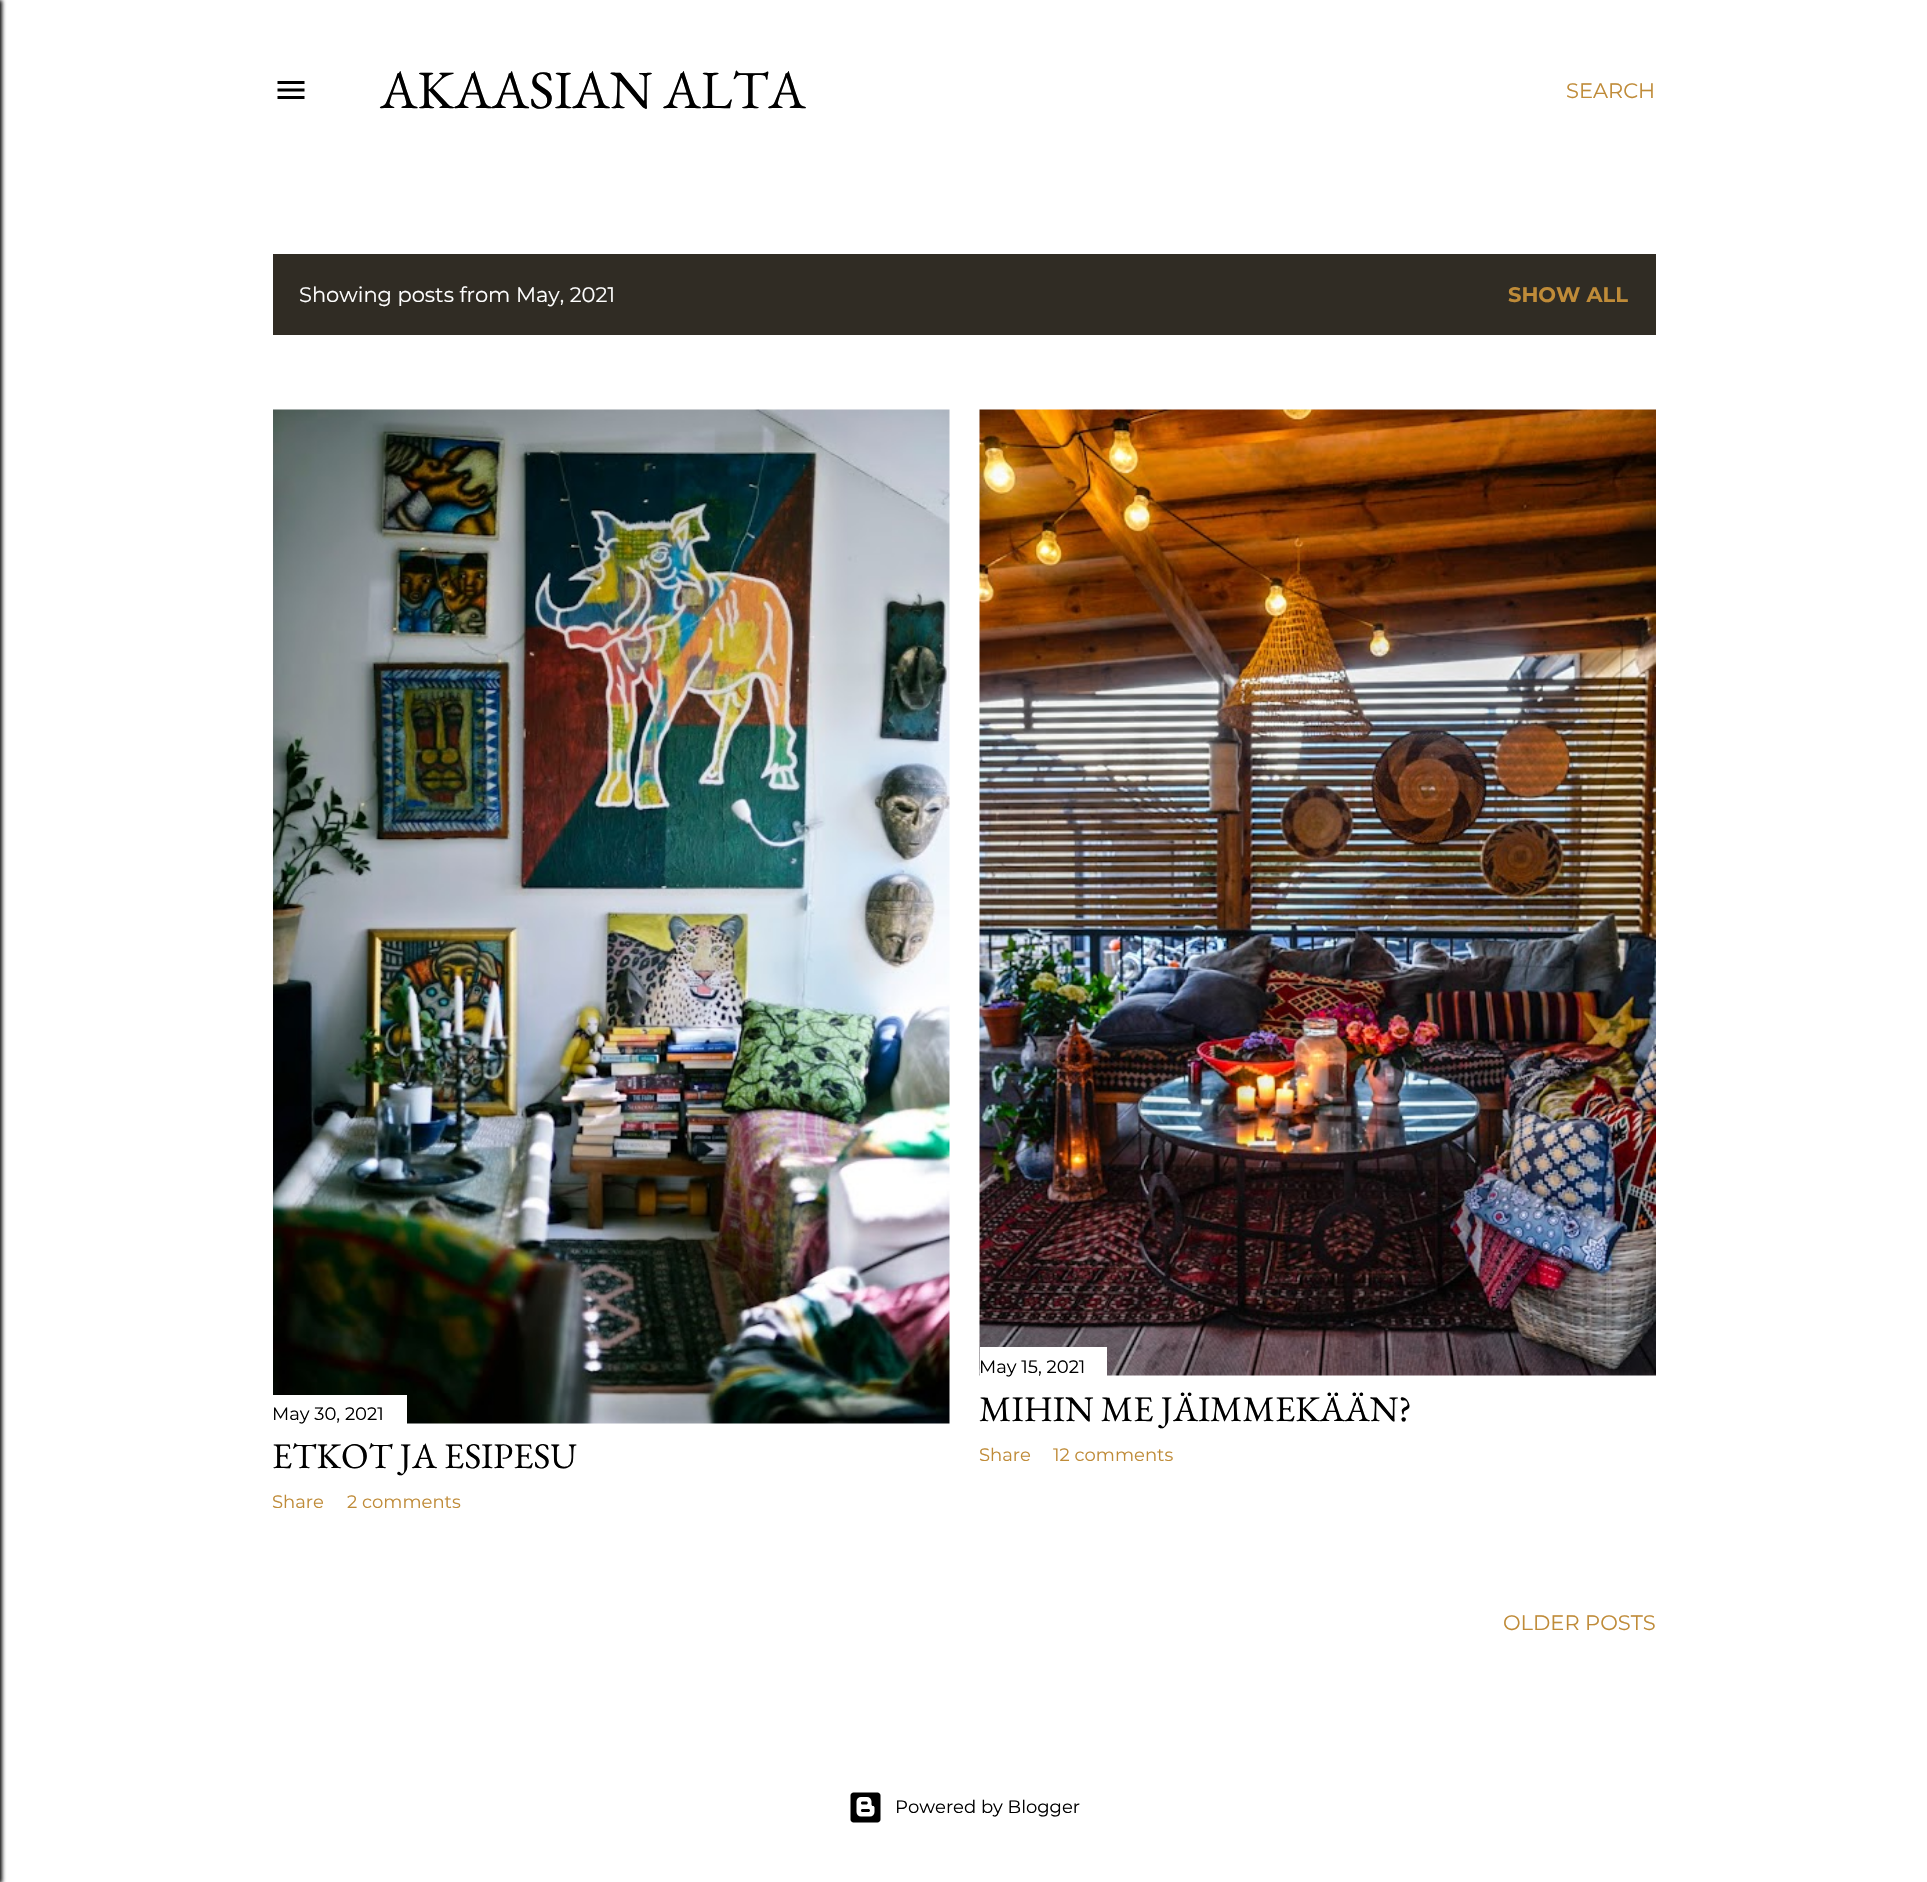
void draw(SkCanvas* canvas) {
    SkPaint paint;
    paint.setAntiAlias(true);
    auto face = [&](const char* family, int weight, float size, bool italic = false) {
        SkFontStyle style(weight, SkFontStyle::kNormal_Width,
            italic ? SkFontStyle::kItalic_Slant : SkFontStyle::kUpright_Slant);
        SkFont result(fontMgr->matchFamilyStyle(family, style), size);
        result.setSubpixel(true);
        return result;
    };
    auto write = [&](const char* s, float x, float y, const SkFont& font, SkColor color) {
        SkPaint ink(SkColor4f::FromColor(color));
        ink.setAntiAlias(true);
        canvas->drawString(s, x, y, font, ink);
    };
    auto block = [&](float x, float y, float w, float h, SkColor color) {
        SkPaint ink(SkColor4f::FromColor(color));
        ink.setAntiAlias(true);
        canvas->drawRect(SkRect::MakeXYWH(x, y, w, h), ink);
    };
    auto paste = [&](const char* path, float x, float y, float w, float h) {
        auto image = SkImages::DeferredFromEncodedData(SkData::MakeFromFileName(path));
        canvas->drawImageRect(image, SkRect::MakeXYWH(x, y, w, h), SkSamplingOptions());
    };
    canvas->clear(SK_ColorWHITE);
    paint.setColor(SK_ColorBLACK);
    paint.setMaskFilter(SkMaskFilter::MakeBlur(kNormal_SkBlurStyle, 2));
    canvas->drawRect(SkRect::MakeXYWH(-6, 0, 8, 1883), paint);
    paint.setMaskFilter(nullptr);
    paste("pic1.png", 277, 81, 28, 18);
    auto kFont1 = face("EB Garamond", 400, 54);
    write("AKAASIAN ALTA", 380, 108, kFont1, SK_ColorBLACK);
    auto kFont2 = face("Montserrat", 400, 21);
    write("SEARCH", 1566, 98, kFont2, SkColorSetRGB(191, 139, 56));
    block(273, 254, 1383, 81, SkColorSetRGB(48, 44, 36));
    write("Showing posts from May, 2021", 299, 302, kFont2, SK_ColorWHITE);
    auto kFont3 = face("Montserrat", 700, 21);
    write("SHOW ALL", 1508, 302, kFont3, SkColorSetRGB(191, 139, 56));
    paste("pic2.png", 273, 409, 677, 1015);
    block(273, 1395, 134, 29, SK_ColorWHITE);
    auto kFont4 = face("Montserrat", 400, 18);
    write("May 30, 2021", 272, 1420, kFont4, SK_ColorBLACK);
    auto kFont5 = face("EB Garamond", 400, 36);
    write("ETKOT JA ESIPESU", 272, 1468, kFont5, SK_ColorBLACK);
    write("Share", 272, 1508, kFont4, SkColorSetRGB(191, 139, 56));
    write("2 comments", 347, 1508, kFont4, SkColorSetRGB(191, 139, 56));
    paste("pic3.png", 979, 409, 677, 967);
    block(980, 1347, 127, 29, SK_ColorWHITE);
    write("May 15, 2021", 979, 1373, kFont4, SK_ColorBLACK);
    write("MIHIN ME JÄIMMEKÄÄN?", 979, 1421, kFont5, SK_ColorBLACK);
    write("Share", 979, 1461, kFont4, SkColorSetRGB(191, 139, 56));
    write("12 comments", 1053, 1461, kFont4, SkColorSetRGB(191, 139, 56));
    write("OLDER POSTS", 1503, 1630, kFont2, SkColorSetRGB(191, 139, 56));
    paste("pic4.png", 850, 1792, 31, 31);
    write("Powered by Blogger", 895, 1813, kFont4, SK_ColorBLACK);
}
